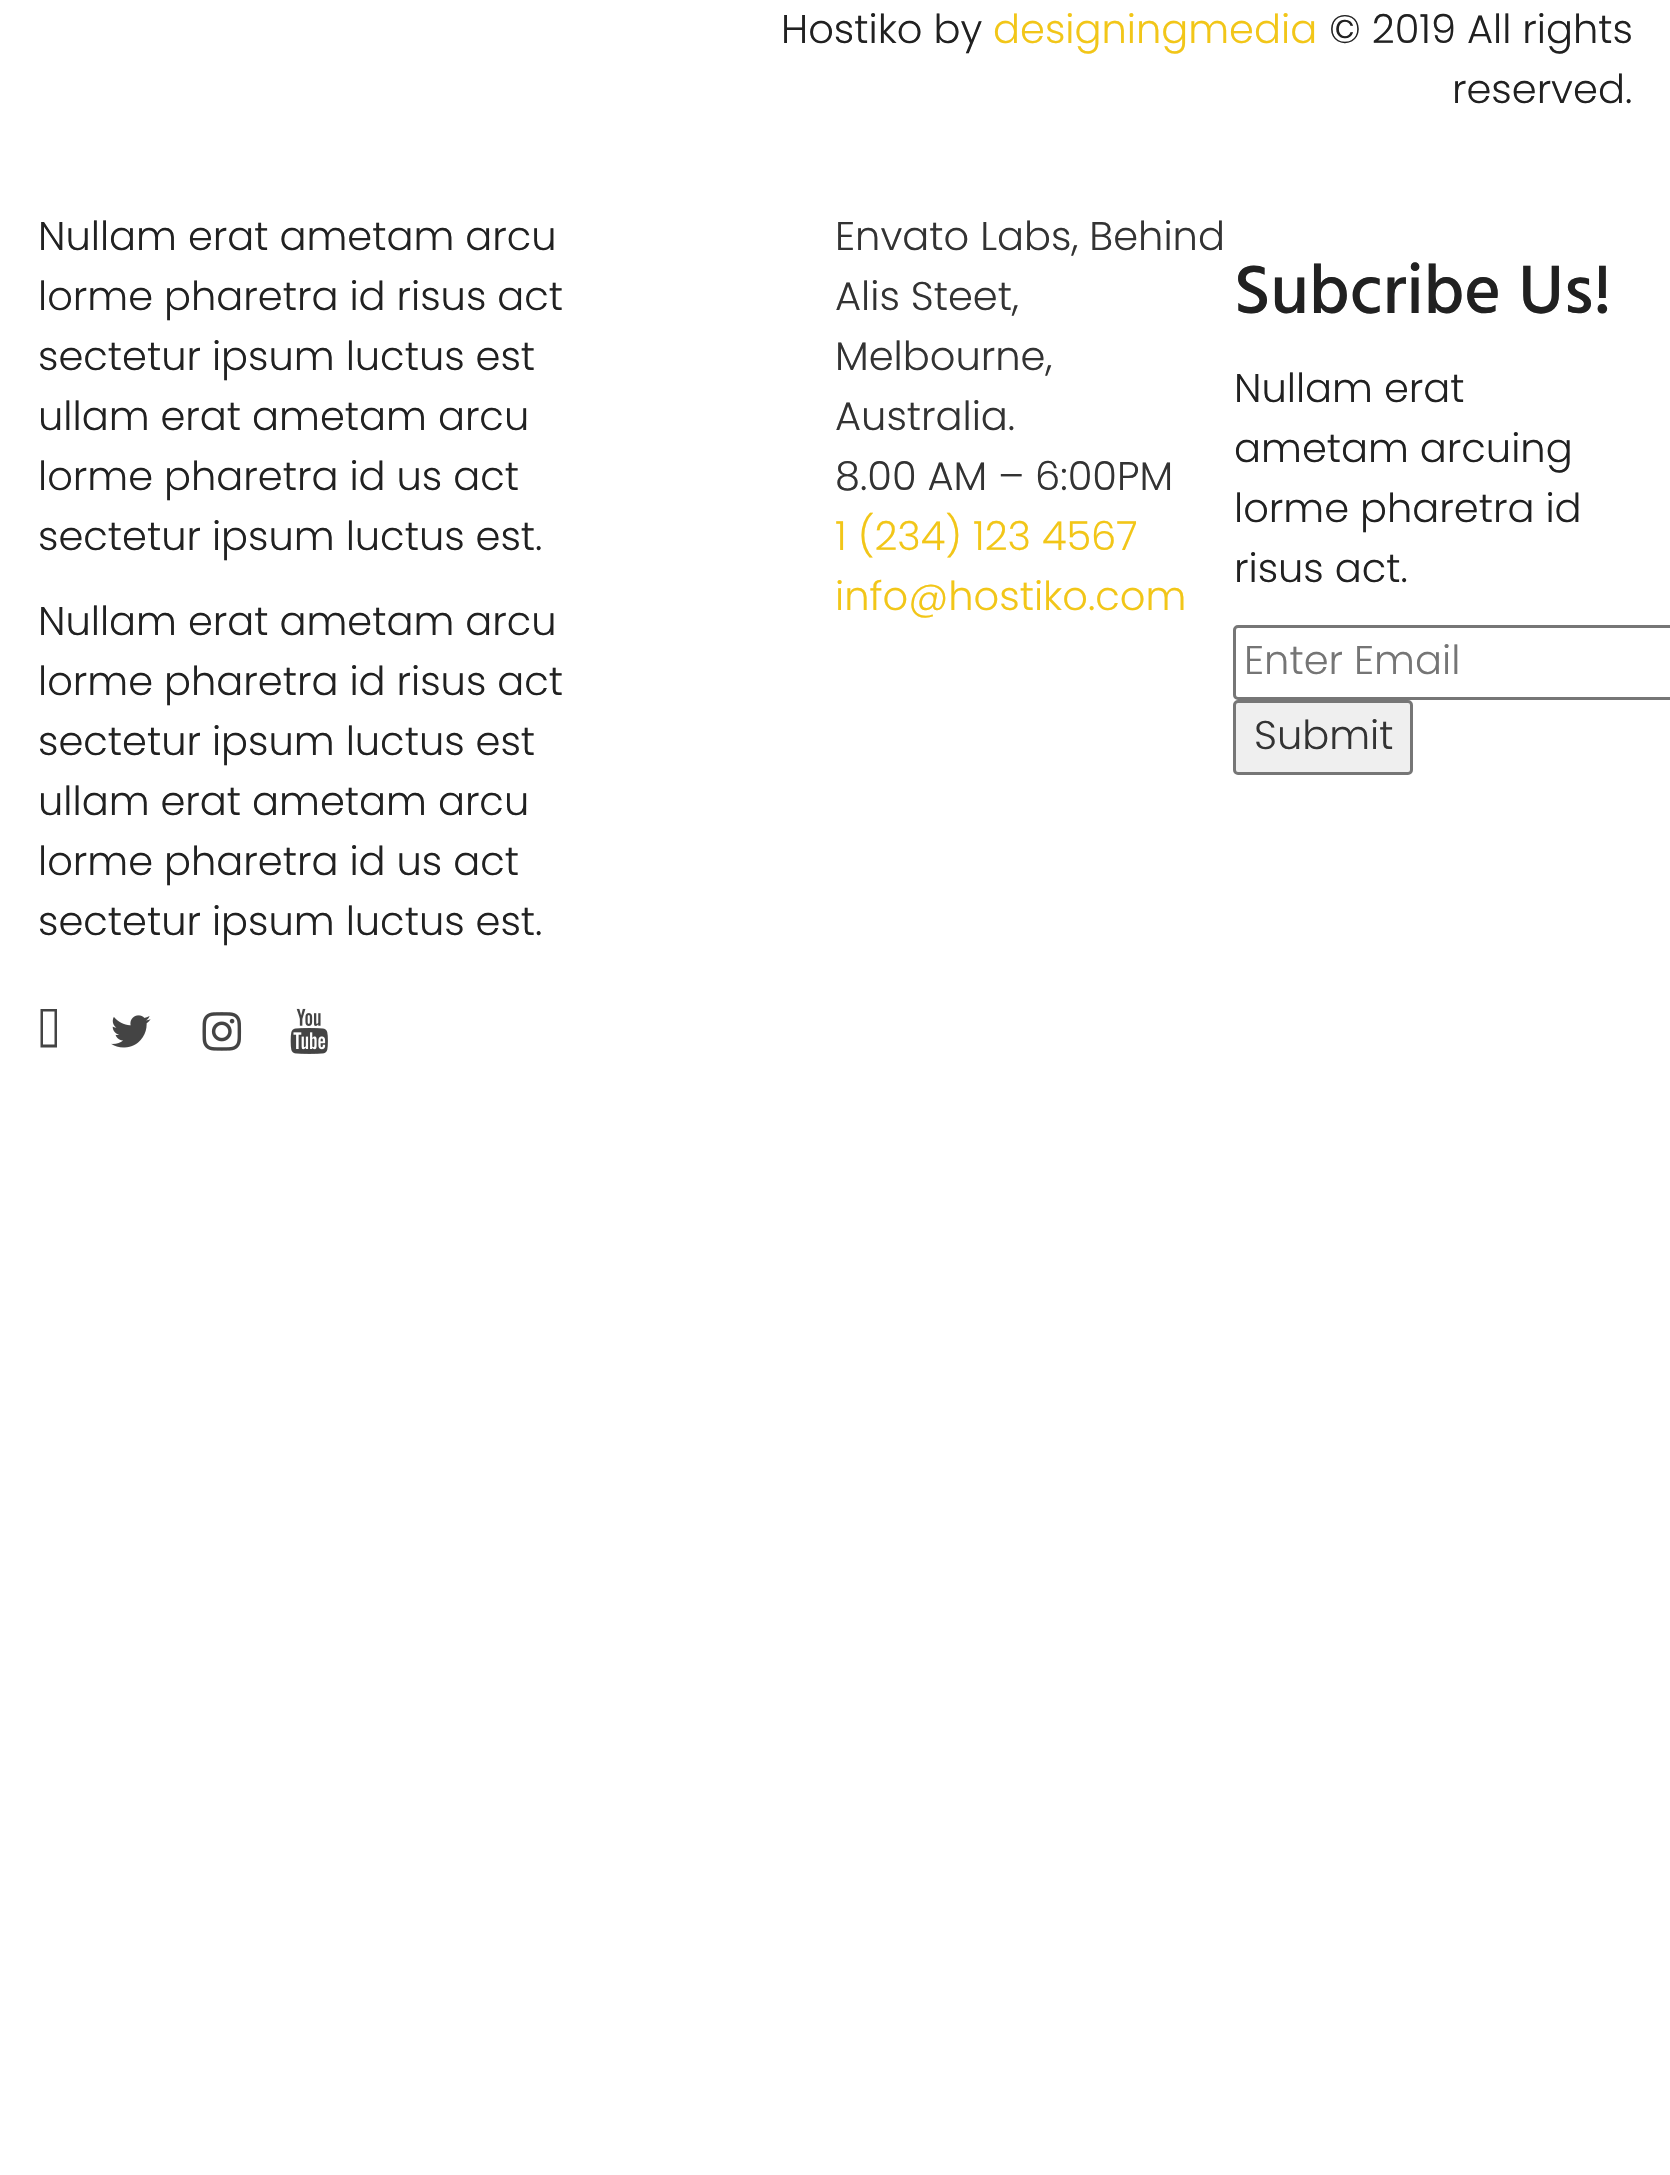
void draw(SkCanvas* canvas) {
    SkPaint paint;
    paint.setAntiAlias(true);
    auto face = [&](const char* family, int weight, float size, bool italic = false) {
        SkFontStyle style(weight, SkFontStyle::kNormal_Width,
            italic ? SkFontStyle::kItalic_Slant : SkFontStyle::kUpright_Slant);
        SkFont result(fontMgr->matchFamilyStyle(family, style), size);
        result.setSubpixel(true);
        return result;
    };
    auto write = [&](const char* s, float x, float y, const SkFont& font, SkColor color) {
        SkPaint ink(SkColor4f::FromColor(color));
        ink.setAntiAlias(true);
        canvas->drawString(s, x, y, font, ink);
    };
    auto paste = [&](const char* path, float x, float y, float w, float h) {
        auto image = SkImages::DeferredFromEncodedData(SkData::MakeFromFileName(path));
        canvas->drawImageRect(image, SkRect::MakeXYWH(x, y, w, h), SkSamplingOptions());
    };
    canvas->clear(SK_ColorWHITE);
    auto kFont1 = face("Poppins", 300, 40);
    write("Hostiko by", 781, 43, kFont1, SkColorSetRGB(33, 33, 33));
    write("designingmedia", 993, 43, kFont1, SkColorSetRGB(242, 198, 24));
    write("© 2019 All rights", 1329, 43, kFont1, SkColorSetRGB(33, 33, 33));
    write("reserved.", 1452, 103, kFont1, SkColorSetRGB(33, 33, 33));
    write("Nullam erat ametam arcu", 38, 250, kFont1, SkColorSetRGB(33, 33, 33));
    write("lorme pharetra id risus act", 38, 310, kFont1, SkColorSetRGB(33, 33, 33));
    write("sectetur ipsum luctus est", 38, 370, kFont1, SkColorSetRGB(33, 33, 33));
    write("ullam erat ametam arcu", 38, 430, kFont1, SkColorSetRGB(33, 33, 33));
    write("lorme pharetra id us act", 38, 490, kFont1, SkColorSetRGB(33, 33, 33));
    write("sectetur ipsum luctus est.", 38, 550, kFont1, SkColorSetRGB(33, 33, 33));
    write("Nullam erat ametam arcu", 38, 635, kFont1, SkColorSetRGB(33, 33, 33));
    write("lorme pharetra id risus act", 38, 695, kFont1, SkColorSetRGB(33, 33, 33));
    write("sectetur ipsum luctus est", 38, 755, kFont1, SkColorSetRGB(33, 33, 33));
    write("ullam erat ametam arcu", 38, 815, kFont1, SkColorSetRGB(33, 33, 33));
    write("lorme pharetra id us act", 38, 875, kFont1, SkColorSetRGB(33, 33, 33));
    write("sectetur ipsum luctus est.", 38, 935, kFont1, SkColorSetRGB(33, 33, 33));
    paint.setColor(SkColorSetRGB(68, 68, 68));
    canvas->drawPath(SkPathBuilder().moveTo(43, 1044.5f).lineTo(54.5f, 1044.5f).lineTo(54.5f, 1011.5f).lineTo(43, 1011.5f).close().moveTo(40.5f, 1047.5f).lineTo(40.5f, 1009).lineTo(57, 1009).lineTo(57, 1047.5f).close().detach(), paint);
    paste("pic1.png", 111, 1015, 40, 33);
    paste("pic2.png", 202, 1012, 40, 39);
    paste("pic3.png", 290, 1008, 38, 46);
    write("Envato Labs, Behind", 835, 250, kFont1, SkColorSetRGB(51, 51, 51));
    write("Alis Steet,", 835, 310, kFont1, SkColorSetRGB(51, 51, 51));
    write("Melbourne,", 835, 370, kFont1, SkColorSetRGB(51, 51, 51));
    write("Australia.", 835, 430, kFont1, SkColorSetRGB(51, 51, 51));
    write("8.00 AM – 6:00PM", 835, 490, kFont1, SkColorSetRGB(51, 51, 51));
    write("1 (234) 123 4567", 835, 550, kFont1, SkColorSetRGB(242, 198, 24));
    write("info@hostiko.com", 835, 610, kFont1, SkColorSetRGB(242, 198, 24));
    auto kFont2 = face("Hind", 500, 70);
    write("Subcribe Us!", 1234, 313, kFont2, SkColorSetRGB(33, 33, 33));
    write("Nullam erat", 1234, 402, kFont1, SkColorSetRGB(33, 33, 33));
    write("ametam arcuing", 1234, 462, kFont1, SkColorSetRGB(33, 33, 33));
    write("lorme pharetra id", 1234, 522, kFont1, SkColorSetRGB(33, 33, 33));
    write("risus act.", 1234, 582, kFont1, SkColorSetRGB(33, 33, 33));
    paint.setStyle(SkPaint::kStroke_Style);
    paint.setStrokeWidth(3);
    paint.setColor(SkColorSetRGB(118, 118, 118));
    canvas->drawRoundRect(SkRect::MakeXYWH(1234.5f, 626.5f, 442, 72), 3.5f, 3.5f, paint);
    write("Enter Email", 1244, 674, kFont1, SkColorSetRGB(117, 117, 117));
    paint.setStyle(SkPaint::kFill_Style);
    paint.setColor(SkColorSetRGB(239, 239, 239));
    canvas->drawRoundRect(SkRect::MakeXYWH(1234.5f, 701.5f, 177, 72), 3.5f, 3.5f, paint);
    paint.setStyle(SkPaint::kStroke_Style);
    paint.setColor(SkColorSetRGB(118, 118, 118));
    canvas->drawRoundRect(SkRect::MakeXYWH(1234.5f, 701.5f, 177, 72), 3.5f, 3.5f, paint);
    write("Submit", 1254, 749, kFont1, SkColorSetRGB(51, 51, 51));
}
